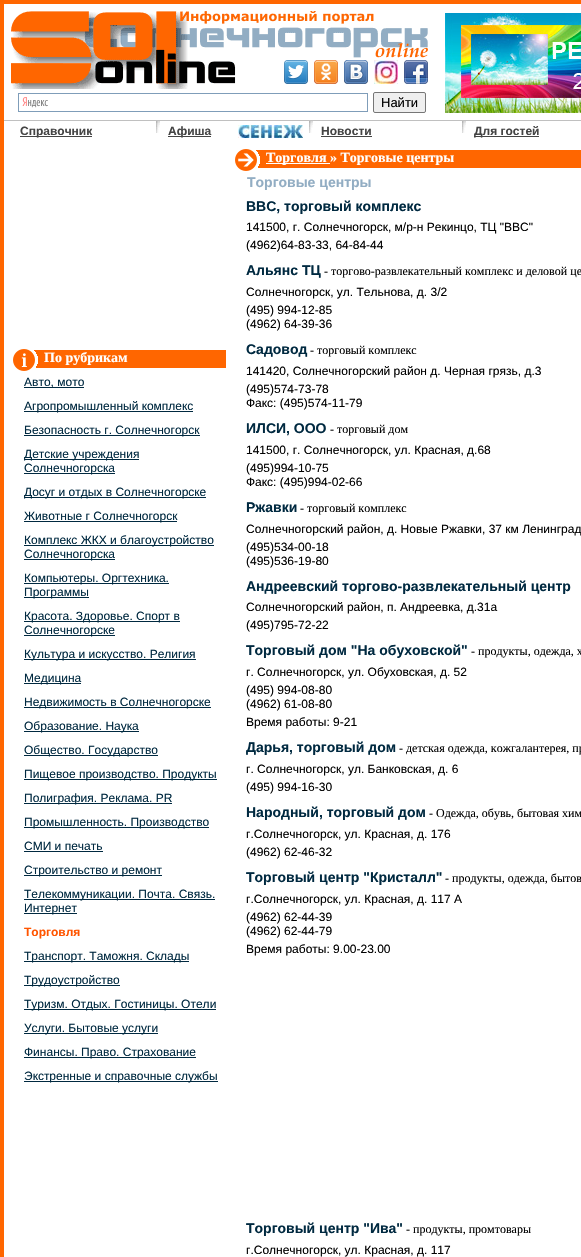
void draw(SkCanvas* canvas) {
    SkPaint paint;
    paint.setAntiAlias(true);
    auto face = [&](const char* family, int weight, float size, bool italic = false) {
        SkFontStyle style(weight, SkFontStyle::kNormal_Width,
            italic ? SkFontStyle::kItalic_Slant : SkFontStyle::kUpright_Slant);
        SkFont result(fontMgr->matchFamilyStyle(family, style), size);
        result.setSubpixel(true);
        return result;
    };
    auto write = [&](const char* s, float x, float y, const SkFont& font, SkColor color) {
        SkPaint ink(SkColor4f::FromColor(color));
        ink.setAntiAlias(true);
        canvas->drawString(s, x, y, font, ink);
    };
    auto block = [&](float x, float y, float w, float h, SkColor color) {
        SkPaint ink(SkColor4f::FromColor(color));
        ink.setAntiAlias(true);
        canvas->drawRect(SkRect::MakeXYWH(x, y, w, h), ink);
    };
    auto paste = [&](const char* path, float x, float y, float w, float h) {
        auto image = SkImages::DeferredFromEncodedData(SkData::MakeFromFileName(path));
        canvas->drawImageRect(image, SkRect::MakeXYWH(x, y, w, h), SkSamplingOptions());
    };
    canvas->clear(SK_ColorWHITE);
    paint.setStyle(SkPaint::kStroke_Style);
    paint.setStrokeWidth(4);
    paint.setColor(SkColorSetRGB(255, 102, 0));
    canvas->drawRect(SkRect::MakeXYWH(2, 2, 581, 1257), paint);
    paste("pic1.png", 11, 11, 417, 78);
    block(4, 120, 577, 1, SkColorSetRGB(192, 192, 192));
    paste("pic2.png", 284, 60, 24, 24);
    paste("pic3.png", 314, 60, 24, 24);
    paste("pic4.png", 344, 60, 24, 24);
    paste("pic5.png", 374, 60, 24, 24);
    paste("pic6.png", 404, 60, 24, 24);
    paste("pic7.png", 445, 13, 136, 100);
    paste("pic8.png", 22, 97, 26, 11);
    paint.setStrokeWidth(1);
    paint.setColor(SkColorSetRGB(127, 157, 185));
    canvas->drawRect(SkRect::MakeXYWH(18.5f, 93.5f, 349, 18), paint);
    paint.setStyle(SkPaint::kFill_Style);
    paint.setColor(SkColorSetRGB(239, 239, 239));
    canvas->drawRoundRect(SkRect::MakeXYWH(373.5f, 92.5f, 52, 20), 1.5f, 1.5f, paint);
    paint.setStyle(SkPaint::kStroke_Style);
    paint.setColor(SkColorSetRGB(118, 118, 118));
    canvas->drawRoundRect(SkRect::MakeXYWH(373.5f, 92.5f, 52, 20), 1.5f, 1.5f, paint);
    auto kFont1 = face("Liberation Sans", 400, 13);
    write("Найти", 381, 107, kFont1, SK_ColorBLACK);
    block(20, 136, 72, 1, SkColorSetRGB(68, 68, 68));
    auto kFont2 = face("Liberation Sans", 700, 12);
    write("Справочник", 20, 135, kFont2, SkColorSetRGB(68, 68, 68));
    paste("pic9.png", 156, 121, 4, 12);
    block(168, 136, 43, 1, SkColorSetRGB(68, 68, 68));
    write("Афиша", 168, 135, kFont2, SkColorSetRGB(68, 68, 68));
    paste("pic10.png", 238, 125, 65, 13);
    paste("pic9.png", 309, 121, 4, 12);
    write("Новости", 321, 135, kFont2, SkColorSetRGB(68, 68, 68));
    block(321, 136, 51, 1, SkColorSetRGB(68, 68, 68));
    paste("pic9.png", 462, 121, 4, 12);
    block(474, 136, 65, 1, SkColorSetRGB(68, 68, 68));
    write("Для гостей", 474, 135, kFont2, SkColorSetRGB(68, 68, 68));
    block(34, 350, 192, 18, SkColorSetRGB(255, 102, 0));
    paste("pic11.png", 10, 349, 28, 22);
    auto kFont3 = face("Liberation Serif", 700, 14);
    write("По рубрикам", 44, 362, kFont3, SK_ColorWHITE);
    block(24, 387, 60, 1, SkColorSetRGB(0, 41, 64));
    auto kFont4 = face("Liberation Sans", 400, 12);
    write("Авто, мото", 24, 386, kFont4, SkColorSetRGB(0, 41, 64));
    block(24, 411, 169, 1, SkColorSetRGB(0, 41, 64));
    write("Агропромышленный комплекс", 24, 410, kFont4, SkColorSetRGB(0, 41, 64));
    block(24, 435, 176, 1, SkColorSetRGB(0, 41, 64));
    write("Безопасность г. Солнечногорск", 24, 434, kFont4, SkColorSetRGB(0, 41, 64));
    block(24, 459, 115, 1, SkColorSetRGB(0, 41, 64));
    write("Детские учреждения", 24, 458, kFont4, SkColorSetRGB(0, 41, 64));
    block(24, 473, 91, 1, SkColorSetRGB(0, 41, 64));
    write("Солнечногорска", 24, 472, kFont4, SkColorSetRGB(0, 41, 64));
    block(24, 497, 182, 1, SkColorSetRGB(0, 41, 64));
    write("Досуг и отдых в Солнечногорске", 24, 496, kFont4, SkColorSetRGB(0, 41, 64));
    block(24, 521, 153, 1, SkColorSetRGB(0, 41, 64));
    write("Животные г Солнечногорск", 24, 520, kFont4, SkColorSetRGB(0, 41, 64));
    block(24, 545, 190, 1, SkColorSetRGB(0, 41, 64));
    write("Комплекс ЖКХ и благоустройство", 24, 544, kFont4, SkColorSetRGB(0, 41, 64));
    block(24, 559, 91, 1, SkColorSetRGB(0, 41, 64));
    write("Солнечногорска", 24, 558, kFont4, SkColorSetRGB(0, 41, 64));
    block(24, 583, 145, 1, SkColorSetRGB(0, 41, 64));
    write("Компьютеры. Оргтехника.", 24, 582, kFont4, SkColorSetRGB(0, 41, 64));
    block(24, 597, 65, 1, SkColorSetRGB(0, 41, 64));
    write("Программы", 24, 596, kFont4, SkColorSetRGB(0, 41, 64));
    block(24, 621, 156, 1, SkColorSetRGB(0, 41, 64));
    write("Красота. Здоровье. Спорт в", 24, 620, kFont4, SkColorSetRGB(0, 41, 64));
    block(24, 635, 91, 1, SkColorSetRGB(0, 41, 64));
    write("Солнечногорске", 24, 634, kFont4, SkColorSetRGB(0, 41, 64));
    block(24, 659, 172, 1, SkColorSetRGB(0, 41, 64));
    write("Культура и искусство. Религия", 24, 658, kFont4, SkColorSetRGB(0, 41, 64));
    block(24, 683, 57, 1, SkColorSetRGB(0, 41, 64));
    write("Медицина", 24, 682, kFont4, SkColorSetRGB(0, 41, 64));
    block(24, 707, 187, 1, SkColorSetRGB(0, 41, 64));
    write("Недвижимость в Солнечногорске", 24, 706, kFont4, SkColorSetRGB(0, 41, 64));
    block(24, 731, 115, 1, SkColorSetRGB(0, 41, 64));
    write("Образование. Наука", 24, 730, kFont4, SkColorSetRGB(0, 41, 64));
    block(24, 755, 134, 1, SkColorSetRGB(0, 41, 64));
    write("Общество. Государство", 24, 754, kFont4, SkColorSetRGB(0, 41, 64));
    block(24, 779, 193, 1, SkColorSetRGB(0, 41, 64));
    write("Пищевое производство. Продукты", 24, 778, kFont4, SkColorSetRGB(0, 41, 64));
    block(24, 803, 148, 1, SkColorSetRGB(0, 41, 64));
    write("Полиграфия. Реклама. PR", 24, 802, kFont4, SkColorSetRGB(0, 41, 64));
    block(24, 827, 185, 1, SkColorSetRGB(0, 41, 64));
    write("Промышленность. Производство", 24, 826, kFont4, SkColorSetRGB(0, 41, 64));
    write("СМИ и печать", 24, 850, kFont4, SkColorSetRGB(0, 41, 64));
    block(24, 851, 79, 1, SkColorSetRGB(0, 41, 64));
    block(24, 875, 138, 1, SkColorSetRGB(0, 41, 64));
    write("Строительство и ремонт", 24, 874, kFont4, SkColorSetRGB(0, 41, 64));
    block(24, 899, 191, 1, SkColorSetRGB(0, 41, 64));
    write("Телекоммуникации. Почта. Связь.", 24, 898, kFont4, SkColorSetRGB(0, 41, 64));
    block(24, 913, 53, 1, SkColorSetRGB(0, 41, 64));
    write("Интернет", 24, 912, kFont4, SkColorSetRGB(0, 41, 64));
    write("Торговля", 24, 936, kFont2, SkColorSetRGB(255, 85, 0));
    block(24, 961, 165, 1, SkColorSetRGB(0, 41, 64));
    write("Транспорт. Таможня. Склады", 24, 960, kFont4, SkColorSetRGB(0, 41, 64));
    block(24, 985, 96, 1, SkColorSetRGB(0, 41, 64));
    write("Трудоустройство", 24, 984, kFont4, SkColorSetRGB(0, 41, 64));
    block(24, 1009, 192, 1, SkColorSetRGB(0, 41, 64));
    write("Туризм. Отдых. Гостиницы. Отели", 24, 1008, kFont4, SkColorSetRGB(0, 41, 64));
    block(24, 1033, 134, 1, SkColorSetRGB(0, 41, 64));
    write("Услуги. Бытовые услуги", 24, 1032, kFont4, SkColorSetRGB(0, 41, 64));
    block(24, 1057, 172, 1, SkColorSetRGB(0, 41, 64));
    write("Финансы. Право. Страхование", 24, 1056, kFont4, SkColorSetRGB(0, 41, 64));
    block(24, 1081, 194, 1, SkColorSetRGB(0, 41, 64));
    write("Экстренные и справочные службы", 24, 1080, kFont4, SkColorSetRGB(0, 41, 64));
    block(256, 150, 325, 18, SkColorSetRGB(255, 102, 0));
    paste("pic12.png", 232, 149, 28, 22);
    block(266, 163, 64, 1, SK_ColorWHITE);
    write("Торговля » Торговые центры", 266, 162, kFont3, SK_ColorWHITE);
    auto kFont5 = face("Liberation Sans", 700, 14);
    write("Торговые центры", 247, 187, kFont5, SkColorSetRGB(146, 173, 195));
    write("ВВС, торговый комплекс", 246, 211, kFont5, SkColorSetRGB(0, 41, 64));
    write("141500, г. Солнечногорск, м/р-н Рекинцо, ТЦ \"ВВС\"", 246, 231, kFont4, SK_ColorBLACK);
    write("(4962)64-83-33, 64-84-44", 246, 249, kFont4, SK_ColorBLACK);
    write("Альянс ТЦ", 246, 275, kFont5, SkColorSetRGB(0, 41, 64));
    auto kFont6 = face("Liberation Serif", 400, 12);
    write("- торгово-развлекательный комплекс и деловой це", 324, 275, kFont6, SK_ColorBLACK);
    write("Солнечногорск, ул. Тельнова, д. 3/2", 246, 296, kFont4, SK_ColorBLACK);
    write("(495) 994-12-85", 246, 314, kFont4, SK_ColorBLACK);
    write("(4962) 64-39-36", 246, 328, kFont4, SK_ColorBLACK);
    write("Садовод", 246, 354, kFont5, SkColorSetRGB(0, 41, 64));
    write("- торговый комплекс", 310, 354, kFont6, SK_ColorBLACK);
    write("141420, Солнечногорский район д. Черная грязь, д.3", 246, 375, kFont4, SK_ColorBLACK);
    write("(495)574-73-78", 246, 393, kFont4, SK_ColorBLACK);
    write("Факс: (495)574-11-79", 246, 407, kFont4, SK_ColorBLACK);
    write("ИЛСИ, ООО", 246, 433, kFont5, SkColorSetRGB(0, 41, 64));
    write("- торговый дом", 330, 433, kFont6, SK_ColorBLACK);
    write("141500, г. Солнечногорск, ул. Красная, д.68", 246, 454, kFont4, SK_ColorBLACK);
    write("(495)994-10-75", 246, 472, kFont4, SK_ColorBLACK);
    write("Факс: (495)994-02-66", 246, 486, kFont4, SK_ColorBLACK);
    write("Ржавки", 246, 512, kFont5, SkColorSetRGB(0, 41, 64));
    write("- торговый комплекс", 300, 512, kFont6, SK_ColorBLACK);
    write("Солнечногорский район, д. Новые Ржавки, 37 км Ленинград", 246, 533, kFont4, SK_ColorBLACK);
    write("(495)534-00-18", 246, 551, kFont4, SK_ColorBLACK);
    write("(495)536-19-80", 246, 565, kFont4, SK_ColorBLACK);
    write("Андреевский торгово-развлекательный центр", 246, 591, kFont5, SkColorSetRGB(0, 41, 64));
    write("Солнечногорский район, п. Андреевка, д.31а", 246, 611, kFont4, SK_ColorBLACK);
    write("(495)795-72-22", 246, 629, kFont4, SK_ColorBLACK);
    write("Торговый дом \"На обуховской\"", 246, 655, kFont5, SkColorSetRGB(0, 41, 64));
    write("- продукты, одежда, х", 471, 655, kFont6, SK_ColorBLACK);
    write("г. Солнечногорск, ул. Обуховская, д. 52", 246, 676, kFont4, SK_ColorBLACK);
    write("(495) 994-08-80", 246, 694, kFont4, SK_ColorBLACK);
    write("(4962) 61-08-80", 246, 708, kFont4, SK_ColorBLACK);
    write("Время работы: 9-21", 246, 726, kFont4, SK_ColorBLACK);
    write("Дарья, торговый дом", 246, 752, kFont5, SkColorSetRGB(0, 41, 64));
    write("- детская одежда, кожгалантерея, пр", 399, 752, kFont6, SK_ColorBLACK);
    write("г. Солнечногорск, ул. Банковская, д. 6", 246, 773, kFont4, SK_ColorBLACK);
    write("(495) 994-16-30", 246, 791, kFont4, SK_ColorBLACK);
    write("Народный, торговый дом", 246, 817, kFont5, SkColorSetRGB(0, 41, 64));
    write("- Одежда, обувь, бытовая хим", 429, 817, kFont6, SK_ColorBLACK);
    write("г.Солнечногорск, ул. Красная, д. 176", 246, 838, kFont4, SK_ColorBLACK);
    write("(4962) 62-46-32", 246, 856, kFont4, SK_ColorBLACK);
    write("Торговый центр \"Кристалл\"", 246, 882, kFont5, SkColorSetRGB(0, 41, 64));
    write("- продукты, одежда, бытов", 445, 882, kFont6, SK_ColorBLACK);
    write("г.Солнечногорск, ул. Красная, д. 117 А", 246, 903, kFont4, SK_ColorBLACK);
    write("(4962) 62-44-39", 246, 921, kFont4, SK_ColorBLACK);
    write("(4962) 62-44-79", 246, 935, kFont4, SK_ColorBLACK);
    write("Время работы: 9.00-23.00", 246, 953, kFont4, SK_ColorBLACK);
    write("Торговый центр \"Ива\"", 246, 1233, kFont5, SkColorSetRGB(0, 41, 64));
    write("- продукты, промтовары", 406, 1233, kFont6, SK_ColorBLACK);
    write("г.Солнечногорск, ул. Красная, д. 117", 246, 1254, kFont4, SK_ColorBLACK);
}
